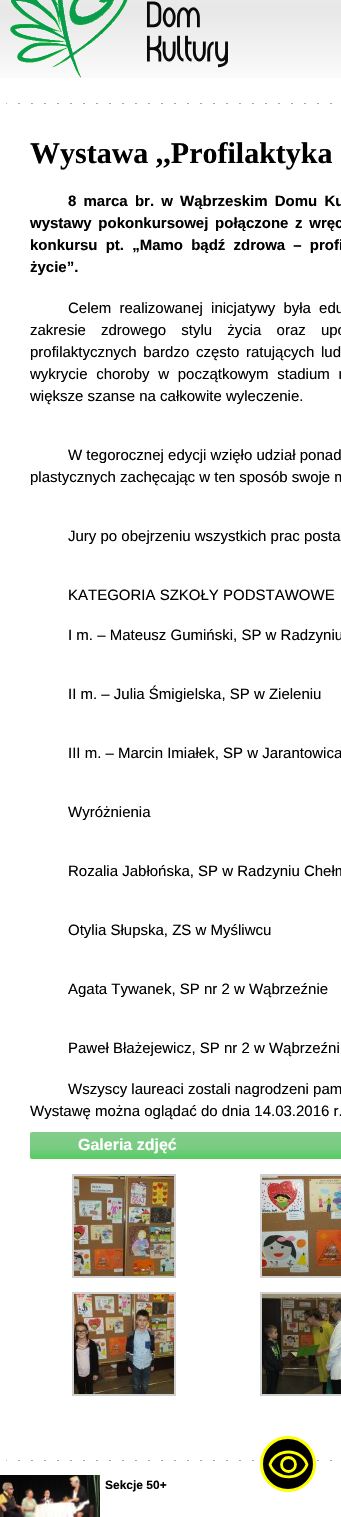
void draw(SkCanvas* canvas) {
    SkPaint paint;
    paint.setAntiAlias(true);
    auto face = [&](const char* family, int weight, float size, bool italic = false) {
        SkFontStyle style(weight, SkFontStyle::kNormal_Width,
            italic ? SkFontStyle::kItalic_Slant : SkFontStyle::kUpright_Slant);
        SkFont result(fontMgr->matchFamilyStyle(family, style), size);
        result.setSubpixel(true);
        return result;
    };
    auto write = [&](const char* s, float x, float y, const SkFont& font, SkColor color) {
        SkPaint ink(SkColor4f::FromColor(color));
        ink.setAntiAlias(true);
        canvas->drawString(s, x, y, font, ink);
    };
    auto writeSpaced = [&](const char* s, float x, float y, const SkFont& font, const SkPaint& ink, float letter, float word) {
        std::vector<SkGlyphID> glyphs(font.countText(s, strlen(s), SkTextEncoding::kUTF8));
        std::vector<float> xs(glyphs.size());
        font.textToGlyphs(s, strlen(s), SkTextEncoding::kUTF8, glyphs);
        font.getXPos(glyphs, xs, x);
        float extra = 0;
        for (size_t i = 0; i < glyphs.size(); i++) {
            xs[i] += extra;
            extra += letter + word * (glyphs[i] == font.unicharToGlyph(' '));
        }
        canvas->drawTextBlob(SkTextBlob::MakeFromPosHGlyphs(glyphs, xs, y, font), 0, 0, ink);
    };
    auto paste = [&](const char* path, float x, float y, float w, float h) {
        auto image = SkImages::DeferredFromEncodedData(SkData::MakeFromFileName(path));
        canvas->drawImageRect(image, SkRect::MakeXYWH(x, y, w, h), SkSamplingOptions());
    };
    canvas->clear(SK_ColorWHITE);
    paste("pic1.png", 0, 0, 341, 78);
    paste("pic2.png", 10, 0, 218, 78);
    paste("pic3.png", 6, 103, 326, 1);
    auto kFont1 = face("Liberation Serif", 700, 30);
    write("Wystawa ,,Profilaktyka", 30, 163, kFont1, SK_ColorBLACK);
    auto kFont2 = face("Liberation Sans", 700, 15);
    paint.setColor(SK_ColorBLACK);
    writeSpaced("8 marca br. w Wąbrzeskim Domu Ku", 68, 206, kFont2, paint, 0, 3);
    writeSpaced("wystawy pokonkursowej połączone z wręc", 30, 228, kFont2, paint, 0, 2.5f);
    writeSpaced("konkursu pt. „Mamo bądź zdrowa – profi", 30, 250, kFont2, paint, 0, 4);
    write("życie”.", 30, 272, kFont2, SK_ColorBLACK);
    auto kFont3 = face("Liberation Sans", 400, 15);
    writeSpaced("Celem realizowanej inicjatywy była edu", 68, 313, kFont3, paint, 0, 4);
    writeSpaced("zakresie zdrowego stylu życia oraz upo", 30, 335, kFont3, paint, 0, 11);
    writeSpaced("profilaktycznych bardzo często ratujących lud", 30, 357, kFont3, paint, 0, 2.5f);
    writeSpaced("wykrycie choroby w początkowym stadium r", 30, 379, kFont3, paint, 0, 4.5f);
    write("większe szanse na całkowite wyleczenie.", 30, 401, kFont3, SK_ColorBLACK);
    write("W tegorocznej edycji wzięło udział ponad", 68, 460, kFont3, SK_ColorBLACK);
    write("plastycznych zachęcając w ten sposób swoje m", 30, 482, kFont3, SK_ColorBLACK);
    write("Jury po obejrzeniu wszystkich prac posta", 68, 541, kFont3, SK_ColorBLACK);
    write("KATEGORIA SZKOŁY PODSTAWOWE", 68, 600, kFont3, SK_ColorBLACK);
    write("I m. – Mateusz Gumiński, SP w Radzyniu", 68, 640, kFont3, SK_ColorBLACK);
    write("II m. – Julia Śmigielska, SP w Zieleniu", 68, 699, kFont3, SK_ColorBLACK);
    write("III m. – Marcin Imiałek, SP w Jarantowica", 68, 758, kFont3, SK_ColorBLACK);
    write("Wyróżnienia", 68, 817, kFont3, SK_ColorBLACK);
    write("Rozalia Jabłońska, SP w Radzyniu Chełm", 68, 876, kFont3, SK_ColorBLACK);
    write("Otylia Słupska, ZS w Myśliwcu", 68, 935, kFont3, SK_ColorBLACK);
    write("Agata Tywanek, SP nr 2 w Wąbrzeźnie", 68, 994, kFont3, SK_ColorBLACK);
    write("Paweł Błażejewicz, SP nr 2 w Wąbrzeźni", 68, 1053, kFont3, SK_ColorBLACK);
    write("Wszyscy laureaci zostali nagrodzeni pam", 68, 1094, kFont3, SK_ColorBLACK);
    write("Wystawę można oglądać do dnia 14.03.2016 r.", 30, 1116, kFont3, SK_ColorBLACK);
    paste("pic4.png", 30, 1132, 311, 27);
    auto kFont4 = face("Liberation Sans", 700, 16);
    write("Galeria zdjęć", 78, 1150, kFont4, SK_ColorWHITE);
    paint.setStyle(SkPaint::kStroke_Style);
    paint.setStrokeWidth(2);
    paint.setColor(SkColorSetRGB(207, 207, 207));
    canvas->drawRect(SkRect::MakeXYWH(73, 1175, 102, 102), paint);
    paste("pic5.png", 74, 1176, 100, 100);
    canvas->drawRect(SkRect::MakeXYWH(261, 1175, 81, 102), paint);
    paste("pic6.png", 262, 1176, 79, 100);
    canvas->drawRect(SkRect::MakeXYWH(73, 1293, 102, 102), paint);
    paste("pic7.png", 74, 1294, 100, 100);
    canvas->drawRect(SkRect::MakeXYWH(261, 1293, 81, 102), paint);
    paste("pic8.png", 262, 1294, 79, 100);
    paste("pic3.png", 6, 1460, 326, 1);
    paste("pic9.png", 0, 1475, 100, 42);
    auto kFont5 = face("Liberation Sans", 700, 12);
    write("Sekcje 50+", 105, 1489, kFont5, SK_ColorBLACK);
    paint.setStyle(SkPaint::kFill_Style);
    paint.setColor(SK_ColorBLACK);
    canvas->drawCircle(288, 1464, 26.5f, paint);
    paint.setStyle(SkPaint::kStroke_Style);
    paint.setStrokeWidth(3);
    paint.setColor(SkColorSetRGB(255, 255, 0));
    canvas->drawCircle(288, 1464, 26.5f, paint);
    paint.setStrokeWidth(2.8f);
    paint.setStrokeCap(SkPaint::kRound_Cap);
    paint.setStrokeJoin(SkPaint::kRound_Join);
    canvas->drawPath(SkPathBuilder().moveTo(288.5f, 1452).cubicTo(280, 1452, 272.5f, 1457, 270, 1464.5f).cubicTo(276, 1481, 301, 1481, 307, 1464.5f).cubicTo(304.5f, 1457, 297, 1452, 288.5f, 1452).close().detach(), paint);
    paint.setStrokeCap(SkPaint::kButt_Cap);
    paint.setStrokeJoin(SkPaint::kMiter_Join);
    canvas->drawCircle(288.5f, 1464.5f, 7, paint);
}
